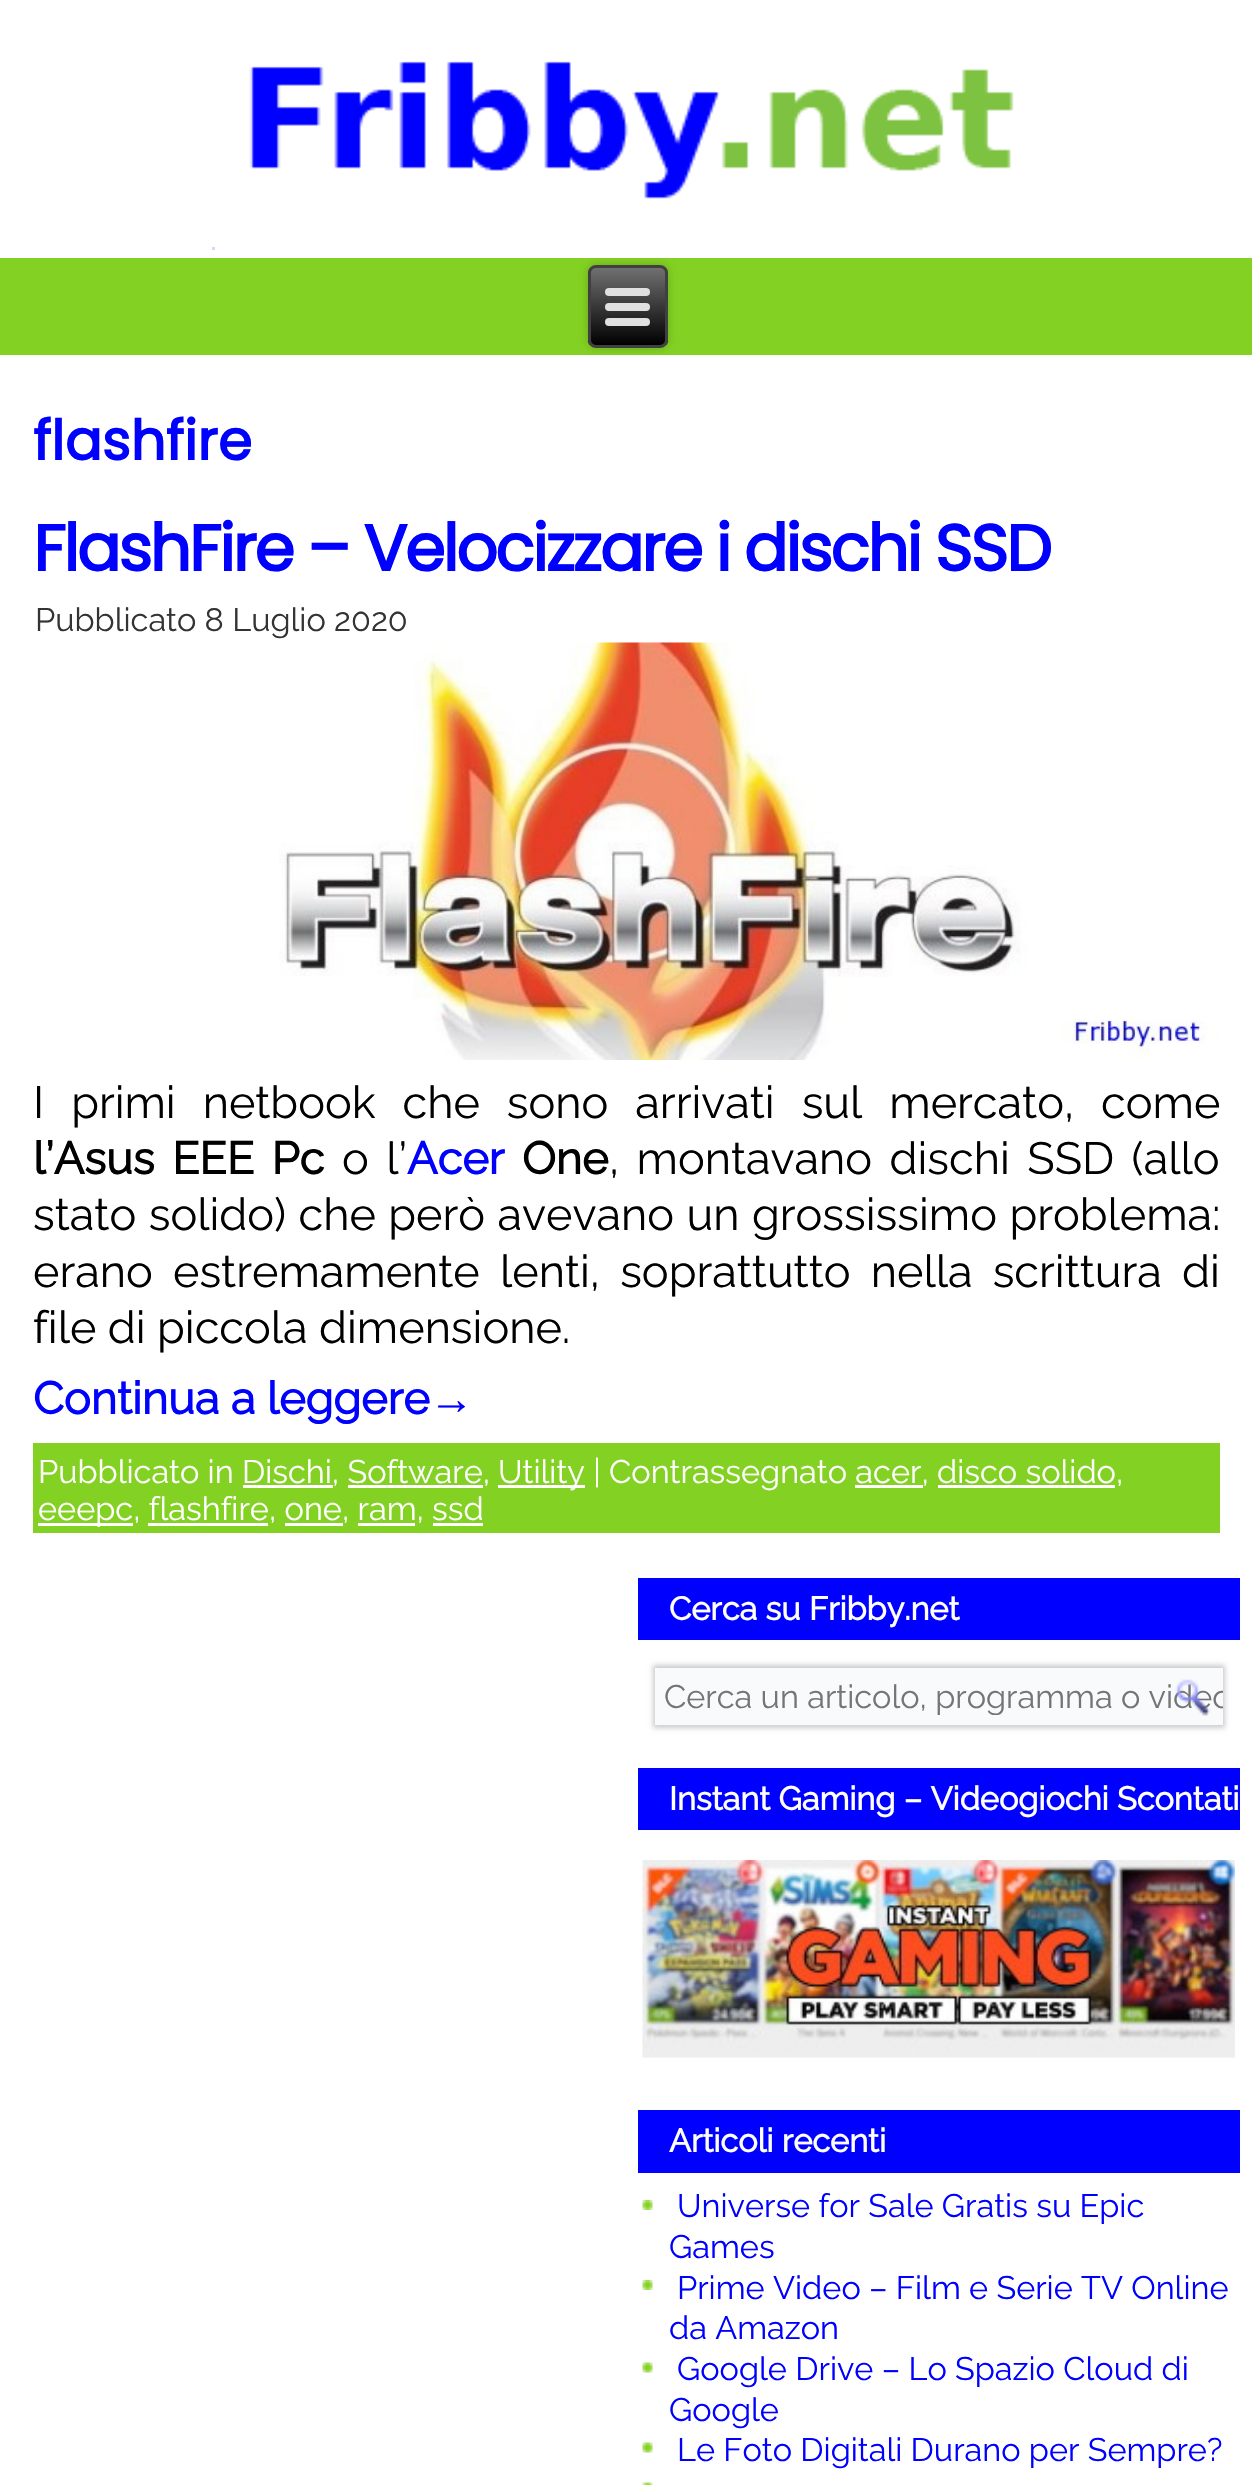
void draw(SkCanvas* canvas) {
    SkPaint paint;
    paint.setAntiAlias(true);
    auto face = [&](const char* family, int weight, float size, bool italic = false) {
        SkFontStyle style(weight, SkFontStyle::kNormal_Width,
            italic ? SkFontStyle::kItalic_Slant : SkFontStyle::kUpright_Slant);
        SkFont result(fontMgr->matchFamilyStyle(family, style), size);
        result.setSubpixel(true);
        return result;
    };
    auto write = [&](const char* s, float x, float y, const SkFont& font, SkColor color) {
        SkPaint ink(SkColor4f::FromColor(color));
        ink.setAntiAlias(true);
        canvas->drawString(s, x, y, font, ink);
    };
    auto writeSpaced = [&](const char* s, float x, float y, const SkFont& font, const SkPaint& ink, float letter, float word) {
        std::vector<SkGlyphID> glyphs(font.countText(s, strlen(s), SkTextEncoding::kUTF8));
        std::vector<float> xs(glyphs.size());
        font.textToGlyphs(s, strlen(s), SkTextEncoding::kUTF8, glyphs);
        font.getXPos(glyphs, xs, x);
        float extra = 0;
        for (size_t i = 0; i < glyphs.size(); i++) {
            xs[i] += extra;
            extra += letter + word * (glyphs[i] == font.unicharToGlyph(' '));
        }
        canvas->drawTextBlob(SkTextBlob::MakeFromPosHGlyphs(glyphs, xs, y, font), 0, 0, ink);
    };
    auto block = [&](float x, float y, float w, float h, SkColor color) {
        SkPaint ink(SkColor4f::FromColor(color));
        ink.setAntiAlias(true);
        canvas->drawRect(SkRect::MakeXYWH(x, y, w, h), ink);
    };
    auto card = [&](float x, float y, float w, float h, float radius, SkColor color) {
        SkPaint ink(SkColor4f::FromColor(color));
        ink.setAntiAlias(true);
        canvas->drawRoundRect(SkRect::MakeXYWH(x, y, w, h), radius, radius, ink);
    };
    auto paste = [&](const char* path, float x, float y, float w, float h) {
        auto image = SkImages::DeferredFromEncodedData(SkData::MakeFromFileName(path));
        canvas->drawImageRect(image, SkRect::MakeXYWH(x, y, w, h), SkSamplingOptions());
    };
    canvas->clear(SK_ColorWHITE);
    paste("pic1.png", 249, 61, 765, 138);
    block(212, 247, 3, 3, SkColorSetRGB(219, 215, 249));
    block(0, 258, 1252, 97, SkColorSetRGB(131, 209, 35));
    paint.setColor(SkColorSetARGB(51, 0, 0, 0));
    paint.setMaskFilter(SkMaskFilter::MakeBlur(kNormal_SkBlurStyle, 4));
    canvas->drawRoundRect(SkRect::MakeXYWH(588, 265, 80, 83), 8, 8, paint);
    paint.setMaskFilter(nullptr);
    canvas->save();
    canvas->clipPath(SkPathBuilder().moveTo(596, 265).lineTo(660, 265).cubicTo(664.5f, 265, 668, 268.5f, 668, 273).lineTo(668, 340).cubicTo(668, 344.5f, 664.5f, 348, 660, 348).lineTo(596, 348).cubicTo(591.5f, 348, 588, 344.5f, 588, 340).lineTo(588, 273).cubicTo(588, 268.5f, 591.5f, 265, 596, 265).close().detach(), true);
    {
        const SkColor colors[] = {SkColorSetRGB(112, 112, 112), SK_ColorBLACK};
        const float stops[] = {0, 1};
        const SkPoint ends[] = {{628, 268}, {628, 345}};
        paint.setShader(SkGradientShader::MakeLinear(ends, colors, stops, 2, SkTileMode::kClamp));
        paint.setAlpha(255);
    }
    canvas->drawRect(SkRect::MakeXYWH(588, 268, 80, 77), paint);
    canvas->restore();
    paint.setStyle(SkPaint::kStroke_Style);
    paint.setStrokeWidth(3);
    paint.setShader(nullptr);
    paint.setColor(SkColorSetRGB(64, 64, 64));
    canvas->drawRoundRect(SkRect::MakeXYWH(589.5f, 266.5f, 77, 80), 6.5f, 6.5f, paint);
    card(605, 288, 45, 8, 4, SkColorSetRGB(224, 224, 224));
    card(605, 303, 45, 8, 4, SkColorSetRGB(224, 224, 224));
    card(605, 318, 45, 8, 4, SkColorSetRGB(224, 224, 224));
    auto kFont1 = face("Poppins", 700, 55);
    write("flashfire", 33, 460, kFont1, SkColorSetRGB(0, 0, 255));
    auto kFont2 = face("Poppins", 700, 65);
    paint.setStyle(SkPaint::kFill_Style);
    paint.setColor(SkColorSetRGB(0, 0, 255));
    writeSpaced("FlashFire – Velocizzare i dischi SSD", 33, 571, kFont2, paint, -2.5f, 0);
    auto kFont3 = face("Raleway", 100, 32.5f);
    write("Pubblicato 8 Luglio 2020", 35, 631, kFont3, SkColorSetRGB(51, 51, 51));
    paste("pic2.png", 279, 642, 939, 418);
    auto kFont4 = face("Raleway", 100, 45);
    paint.setColor(SK_ColorBLACK);
    writeSpaced("I primi netbook che sono arrivati sul mercato, come", 33, 1118, kFont4, paint, 0, 15.5f);
    auto kFont5 = face("Raleway", 700, 45);
    writeSpaced("l’Asus EEE Pc", 33, 1174, kFont5, paint, 0, 6);
    writeSpaced("o l’", 342, 1174, kFont4, paint, 0, 6);
    write("Acer", 407, 1174, kFont5, SkColorSetRGB(0, 0, 255));
    write("One", 522, 1174, kFont5, SK_ColorBLACK);
    writeSpaced(", montavano dischi SSD (allo", 609, 1174, kFont4, paint, 0, 6);
    writeSpaced("stato solido) che però avevano un grossissimo problema:", 33, 1230, kFont4, paint, 0, 1);
    writeSpaced("erano estremamente lenti, soprattutto nella scrittura di", 33, 1287, kFont4, paint, 0, 8.75f);
    write("file di piccola dimensione.", 33, 1343, kFont4, SK_ColorBLACK);
    write("Continua a leggere", 33, 1414, kFont5, SkColorSetRGB(0, 0, 255));
    auto kFont6 = face("Liberation Sans", 700, 45);
    write("→", 429, 1414, kFont6, SkColorSetRGB(0, 0, 255));
    block(33, 1443, 1187, 90, SkColorSetRGB(131, 209, 35));
    write("Pubblicato in Dischi, Software,", 38, 1483, kFont3, SK_ColorWHITE);
    block(243, 1485, 90, 3, SK_ColorWHITE);
    block(348, 1485, 135, 3, SK_ColorWHITE);
    block(498, 1485, 87, 3, SK_ColorWHITE);
    write("Utility | Contrassegnato acer, disco solido,", 498, 1483, kFont3, SK_ColorWHITE);
    block(38, 1523, 95, 3, SK_ColorWHITE);
    write("eeepc, flashfire, one, ram, ssd", 38, 1520, kFont3, SK_ColorWHITE);
    block(855, 1485, 68, 3, SK_ColorWHITE);
    block(938, 1485, 177, 3, SK_ColorWHITE);
    block(148, 1523, 120, 3, SK_ColorWHITE);
    block(285, 1523, 58, 3, SK_ColorWHITE);
    block(358, 1523, 57, 3, SK_ColorWHITE);
    block(433, 1523, 50, 3, SK_ColorWHITE);
    block(638, 1578, 602, 62, SkColorSetRGB(0, 0, 255));
    auto kFont7 = face("Raleway", 700, 32.5f);
    write("Cerca su Fribby.net", 669, 1620, kFont7, SK_ColorWHITE);
    paint.setColor(SkColorSetARGB(51, 0, 0, 0));
    paint.setMaskFilter(SkMaskFilter::MakeBlur(kNormal_SkBlurStyle, 2.5f));
    canvas->drawRect(SkRect::MakeXYWH(653, 1665, 572, 63), paint);
    paint.setMaskFilter(nullptr);
    block(655, 1668, 568, 57, SkColorSetRGB(249, 250, 251));
    canvas->save();
    canvas->clipRect(SkRect::MakeXYWH(655, 1678, 568, 37));
    write("Cerca un articolo, programma o video", 664, 1708, kFont3, SkColorSetRGB(117, 117, 117));
    canvas->restore();
    paste("pic3.png", 1175, 1679, 36, 37);
    block(638, 1768, 602, 62, SkColorSetRGB(0, 0, 255));
    write("Instant Gaming – Videogiochi Scontati", 669, 1810, kFont7, SK_ColorWHITE);
    paste("pic4.png", 642, 1860, 593, 198);
    block(638, 2110, 602, 63, SkColorSetRGB(0, 0, 255));
    write("Articoli recenti", 669, 2152, kFont7, SK_ColorWHITE);
    paste("pic5.png", 642, 2200, 11, 10);
    write("Universe for Sale Gratis su Epic", 677, 2217, kFont3, SkColorSetRGB(0, 0, 255));
    write("Games", 669, 2258, kFont3, SkColorSetRGB(0, 0, 255));
    paste("pic5.png", 642, 2280, 11, 10);
    write("Prime Video – Film e Serie TV Online", 677, 2299, kFont3, SkColorSetRGB(0, 0, 255));
    write("da Amazon", 669, 2339, kFont3, SkColorSetRGB(0, 0, 255));
    paste("pic6.png", 642, 2362, 11, 11);
    write("Google Drive – Lo Spazio Cloud di", 677, 2380, kFont3, SkColorSetRGB(0, 0, 255));
    write("Google", 669, 2421, kFont3, SkColorSetRGB(0, 0, 255));
    paste("pic6.png", 642, 2442, 11, 11);
    write("Le Foto Digitali Durano per Sempre?", 677, 2461, kFont3, SkColorSetRGB(0, 0, 255));
    paste("pic7.png", 642, 2482, 11, 3);
}
